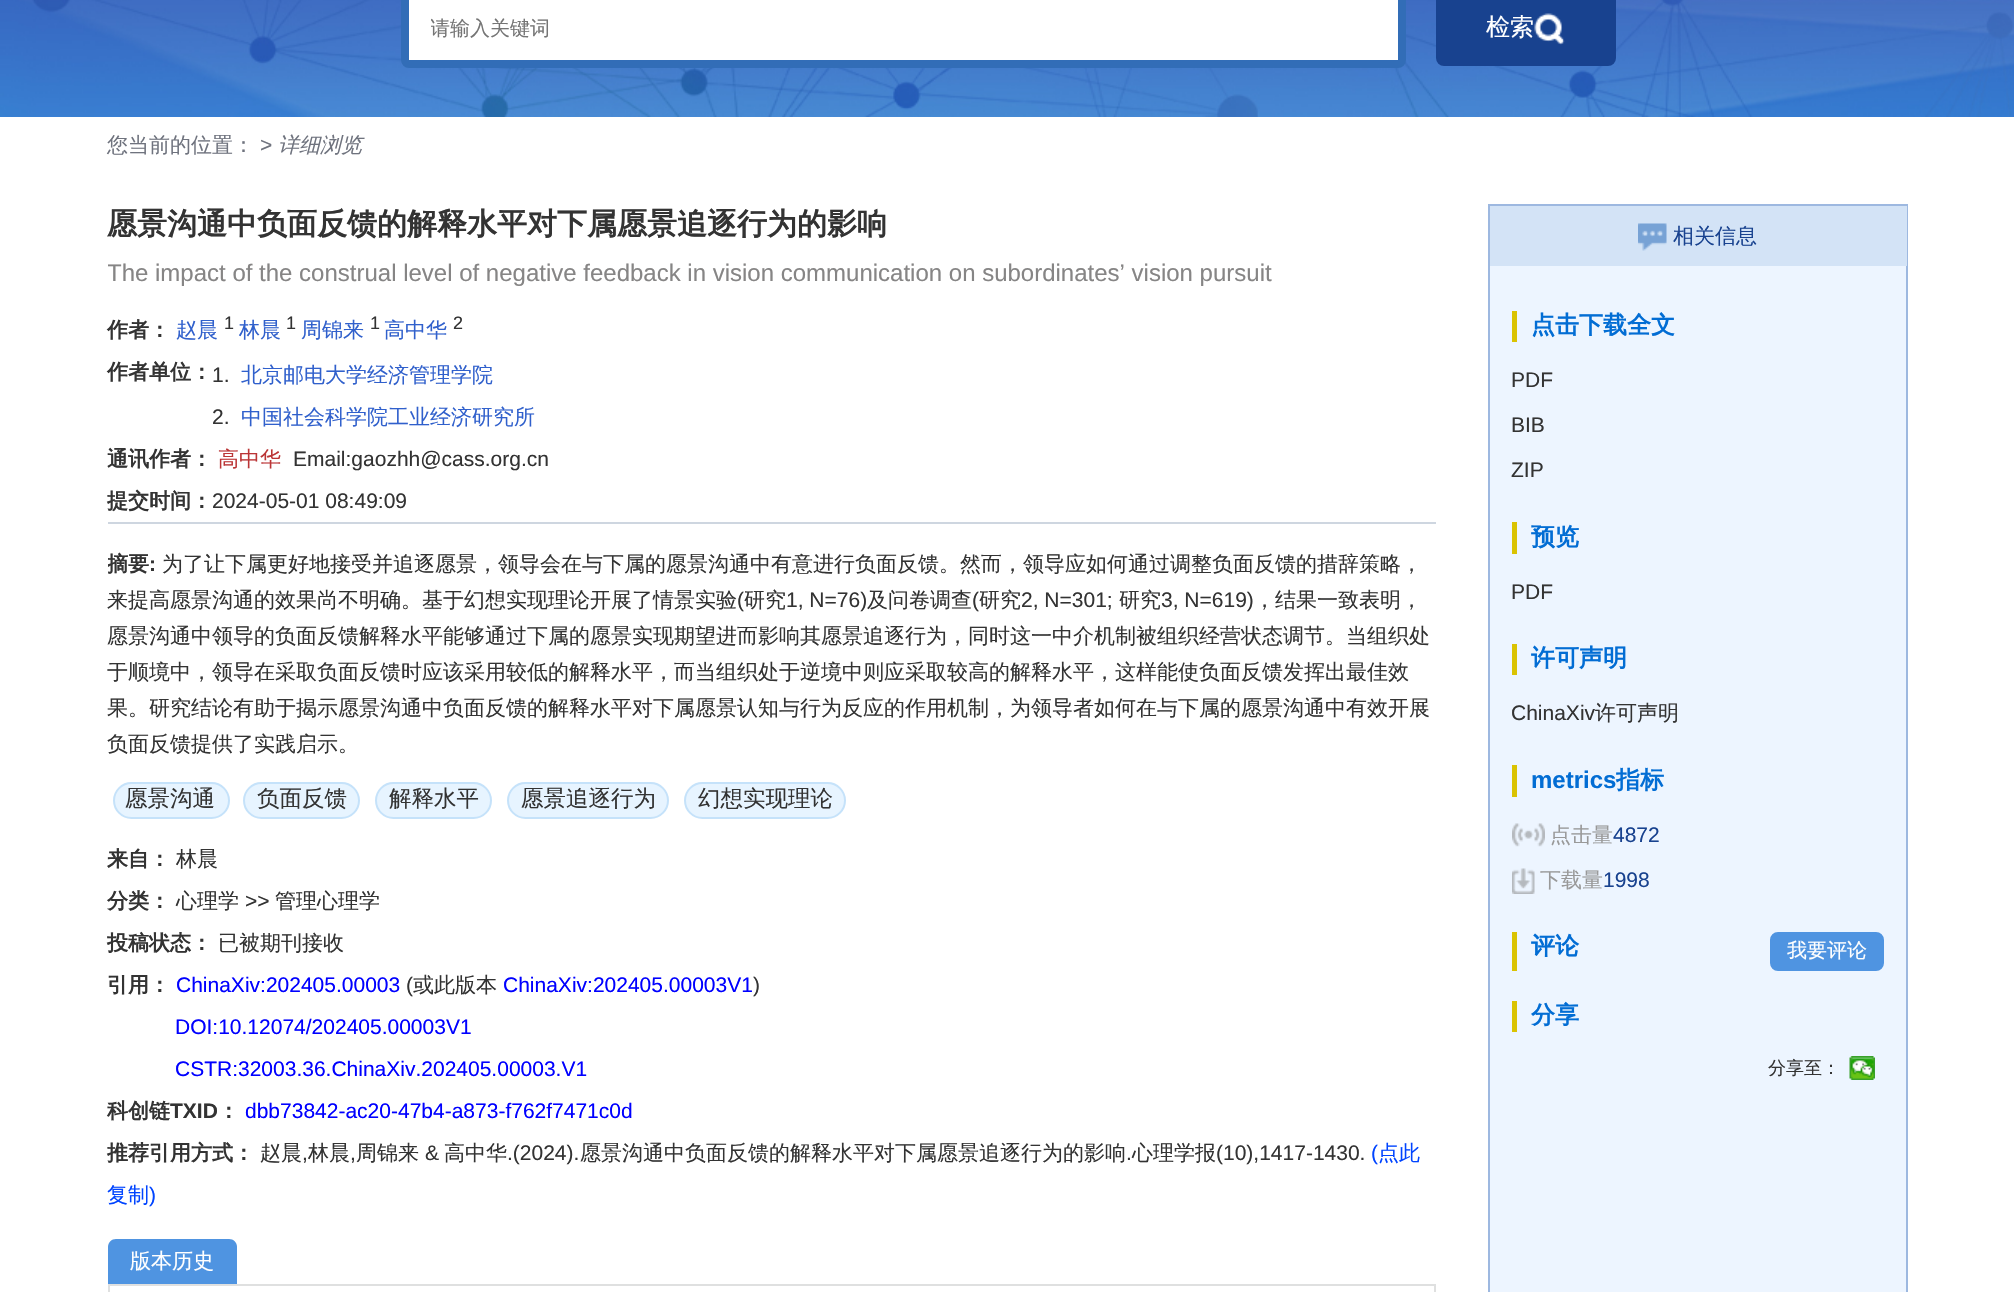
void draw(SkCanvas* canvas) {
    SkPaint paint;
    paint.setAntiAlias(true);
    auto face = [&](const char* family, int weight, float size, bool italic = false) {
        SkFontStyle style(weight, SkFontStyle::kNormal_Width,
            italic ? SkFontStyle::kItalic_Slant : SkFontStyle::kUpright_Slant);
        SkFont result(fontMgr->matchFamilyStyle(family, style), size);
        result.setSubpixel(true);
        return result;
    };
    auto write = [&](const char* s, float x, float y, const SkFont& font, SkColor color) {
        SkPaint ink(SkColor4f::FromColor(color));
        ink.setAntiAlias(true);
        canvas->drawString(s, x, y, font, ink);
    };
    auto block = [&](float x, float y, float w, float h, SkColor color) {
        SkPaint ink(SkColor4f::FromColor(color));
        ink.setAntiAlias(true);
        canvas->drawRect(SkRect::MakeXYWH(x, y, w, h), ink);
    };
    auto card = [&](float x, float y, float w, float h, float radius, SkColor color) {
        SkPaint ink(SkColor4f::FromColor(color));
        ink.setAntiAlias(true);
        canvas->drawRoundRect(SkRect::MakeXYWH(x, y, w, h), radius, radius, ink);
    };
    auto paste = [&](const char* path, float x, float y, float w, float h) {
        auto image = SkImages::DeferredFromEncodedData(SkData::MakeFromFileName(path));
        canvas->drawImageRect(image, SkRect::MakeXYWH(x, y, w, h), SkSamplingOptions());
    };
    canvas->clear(SK_ColorWHITE);
    paste("pic1.png", 0, 0, 2014, 117);
    paint.setColor(SK_ColorWHITE);
    canvas->drawRoundRect(SkRect::MakeXYWH(405, -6, 997, 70), 4, 4, paint);
    paint.setStyle(SkPaint::kStroke_Style);
    paint.setStrokeWidth(8);
    paint.setColor(SkColorSetRGB(50, 109, 183));
    canvas->drawRoundRect(SkRect::MakeXYWH(405, -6, 997, 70), 4, 4, paint);
    canvas->save();
    canvas->clipRect(SkRect::MakeXYWH(431, 17, 967, 27));
    auto kFont1 = face("WenQuanYi Zen Hei", 500, 20);
    write("请输入关键词", 430, 35, kFont1, SkColorSetRGB(117, 117, 117));
    canvas->restore();
    card(1436, -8, 180, 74, 8, SkColorSetRGB(24, 66, 143));
    auto kFont2 = face("WenQuanYi Zen Hei", 500, 24);
    write("检索", 1486, 35, kFont2, SK_ColorWHITE);
    paste("pic2.png", 1534, 13, 31, 32);
    auto kFont3 = face("WenQuanYi Zen Hei", 500, 21);
    write("您当前的位置：", 107, 152, kFont3, SkColorSetRGB(111, 115, 126));
    auto kFont4 = face("Liberation Sans", 400, 21);
    write(">", 260, 152, kFont4, SkColorSetRGB(111, 115, 126));
    auto kFont5 = face("WenQuanYi Zen Hei", 500, 21, true);
    write("详细浏览", 278, 152, kFont5, SkColorSetRGB(111, 115, 126));
    auto kFont6 = face("WenQuanYi Zen Hei", 700, 30);
    write("愿景沟通中负面反馈的解释水平对下属愿景追逐行为的影响", 107, 234, kFont6, SkColorSetRGB(51, 51, 51));
    canvas->save();
    canvas->clipRect(SkRect::MakeXYWH(108, 260, 1328, 27));
    auto kFont7 = face("Liberation Sans", 400, 24);
    write("The impact of the construal level of negative feedback in vision communication on subordinates’ vision pursuit", 107, 281, kFont7, SkColorSetRGB(134, 133, 133));
    canvas->restore();
    block(108, 522, 1328, 2, SkColorSetRGB(206, 214, 224));
    auto kFont8 = face("WenQuanYi Zen Hei", 700, 21);
    write("作者：", 107, 337, kFont8, SkColorSetRGB(51, 51, 51));
    write("赵晨", 176, 337, kFont3, SkColorSetRGB(48, 96, 204));
    auto kFont9 = face("Liberation Sans", 400, 18);
    write("1", 224, 329, kFont9, SkColorSetRGB(51, 51, 51));
    write("林晨", 239, 337, kFont3, SkColorSetRGB(48, 96, 204));
    write("1", 286, 329, kFont9, SkColorSetRGB(51, 51, 51));
    write("周锦来", 301, 337, kFont3, SkColorSetRGB(48, 96, 204));
    write("1", 370, 329, kFont9, SkColorSetRGB(51, 51, 51));
    write("高中华", 384, 337, kFont3, SkColorSetRGB(48, 96, 204));
    write("2", 453, 329, kFont9, SkColorSetRGB(51, 51, 51));
    write("作者单位：", 107, 379, kFont8, SkColorSetRGB(51, 51, 51));
    write("1.", 212, 382, kFont4, SkColorSetRGB(51, 51, 51));
    write("北京邮电大学经济管理学院", 241, 382, kFont3, SkColorSetRGB(48, 96, 204));
    write("2.", 212, 424, kFont4, SkColorSetRGB(51, 51, 51));
    write("中国社会科学院工业经济研究所", 241, 424, kFont3, SkColorSetRGB(48, 96, 204));
    write("通讯作者：", 107, 466, kFont8, SkColorSetRGB(51, 51, 51));
    write("高中华", 218, 466, kFont3, SkColorSetRGB(187, 53, 54));
    write("Email:gaozhh@cass.org.cn", 293, 466, kFont4, SkColorSetRGB(51, 51, 51));
    write("提交时间：", 107, 508, kFont8, SkColorSetRGB(51, 51, 51));
    write("2024-05-01 08:49:09", 212, 508, kFont4, SkColorSetRGB(51, 51, 51));
    canvas->save();
    canvas->clipRect(SkRect::MakeXYWH(108, 546, 1328, 216));
    write("摘要", 107, 571, kFont8, SkColorSetRGB(51, 51, 51));
    canvas->restore();
    auto kFont10 = face("Liberation Sans", 700, 21);
    write(":", 149, 571, kFont10, SkColorSetRGB(51, 51, 51));
    write("为了让下属更好地接受并追逐愿景，领导会在与下属的愿景沟通中有意进行负面反馈。然而，领导应如何通过调整负面反馈的措辞策略，", 162, 571, kFont3, SkColorSetRGB(51, 51, 51));
    write("来提高愿景沟通的效果尚不明确。基于幻想实现理论开展了情景实验", 107, 607, kFont3, SkColorSetRGB(51, 51, 51));
    write("(", 737, 607, kFont4, SkColorSetRGB(51, 51, 51));
    write("研究", 744, 607, kFont3, SkColorSetRGB(51, 51, 51));
    write("1, N=76)", 786, 607, kFont4, SkColorSetRGB(51, 51, 51));
    write("及问卷调查", 867, 607, kFont3, SkColorSetRGB(51, 51, 51));
    write("(", 972, 607, kFont4, SkColorSetRGB(51, 51, 51));
    write("研究", 979, 607, kFont3, SkColorSetRGB(51, 51, 51));
    write("2, N=301;", 1021, 607, kFont4, SkColorSetRGB(51, 51, 51));
    write("研究", 1119, 607, kFont3, SkColorSetRGB(51, 51, 51));
    write("3, N=619)", 1161, 607, kFont4, SkColorSetRGB(51, 51, 51));
    write("，结果一致表明，", 1254, 607, kFont3, SkColorSetRGB(51, 51, 51));
    write("愿景沟通中领导的负面反馈解释水平能够通过下属的愿景实现期望进而影响其愿景追逐行为，同时这一中介机制被组织经营状态调节。当组织处", 107, 643, kFont3, SkColorSetRGB(51, 51, 51));
    write("于顺境中，领导在采取负面反馈时应该采用较低的解释水平，而当组织处于逆境中则应采取较高的解释水平，这样能使负面反馈发挥出最佳效", 107, 679, kFont3, SkColorSetRGB(51, 51, 51));
    write("果。研究结论有助于揭示愿景沟通中负面反馈的解释水平对下属愿景认知与行为反应的作用机制，为领导者如何在与下属的愿景沟通中有效开展", 107, 715, kFont3, SkColorSetRGB(51, 51, 51));
    write("负面反馈提供了实践启示。", 107, 751, kFont3, SkColorSetRGB(51, 51, 51));
    paint.setStyle(SkPaint::kFill_Style);
    paint.setColor(SkColorSetRGB(231, 244, 255));
    canvas->drawRoundRect(SkRect::MakeXYWH(114, 783, 115, 35), 17.5f, 17.5f, paint);
    paint.setStyle(SkPaint::kStroke_Style);
    paint.setStrokeWidth(2);
    paint.setColor(SkColorSetRGB(197, 226, 250));
    canvas->drawRoundRect(SkRect::MakeXYWH(114, 783, 115, 35), 17.5f, 17.5f, paint);
    auto kFont11 = face("WenQuanYi Zen Hei", 500, 22.5f);
    write("愿景沟通", 125, 806, kFont11, SkColorSetRGB(51, 51, 51));
    paint.setStyle(SkPaint::kFill_Style);
    paint.setColor(SkColorSetRGB(231, 244, 255));
    canvas->drawRoundRect(SkRect::MakeXYWH(244, 783, 115, 35), 17.5f, 17.5f, paint);
    paint.setStyle(SkPaint::kStroke_Style);
    paint.setColor(SkColorSetRGB(197, 226, 250));
    canvas->drawRoundRect(SkRect::MakeXYWH(244, 783, 115, 35), 17.5f, 17.5f, paint);
    write("负面反馈", 257, 806, kFont11, SkColorSetRGB(51, 51, 51));
    paint.setStyle(SkPaint::kFill_Style);
    paint.setColor(SkColorSetRGB(231, 244, 255));
    canvas->drawRoundRect(SkRect::MakeXYWH(376, 783, 115, 35), 17.5f, 17.5f, paint);
    paint.setStyle(SkPaint::kStroke_Style);
    paint.setColor(SkColorSetRGB(197, 226, 250));
    canvas->drawRoundRect(SkRect::MakeXYWH(376, 783, 115, 35), 17.5f, 17.5f, paint);
    write("解释水平", 389, 806, kFont11, SkColorSetRGB(51, 51, 51));
    paint.setStyle(SkPaint::kFill_Style);
    paint.setColor(SkColorSetRGB(231, 244, 255));
    canvas->drawRoundRect(SkRect::MakeXYWH(508, 783, 160, 35), 17.5f, 17.5f, paint);
    paint.setStyle(SkPaint::kStroke_Style);
    paint.setColor(SkColorSetRGB(197, 226, 250));
    canvas->drawRoundRect(SkRect::MakeXYWH(508, 783, 160, 35), 17.5f, 17.5f, paint);
    write("愿景追逐行为", 521, 806, kFont11, SkColorSetRGB(51, 51, 51));
    paint.setStyle(SkPaint::kFill_Style);
    paint.setColor(SkColorSetRGB(231, 244, 255));
    canvas->drawRoundRect(SkRect::MakeXYWH(685, 783, 160, 35), 17.5f, 17.5f, paint);
    paint.setStyle(SkPaint::kStroke_Style);
    paint.setColor(SkColorSetRGB(197, 226, 250));
    canvas->drawRoundRect(SkRect::MakeXYWH(685, 783, 160, 35), 17.5f, 17.5f, paint);
    write("幻想实现理论", 698, 806, kFont11, SkColorSetRGB(51, 51, 51));
    write("来自：", 107, 866, kFont8, SkColorSetRGB(51, 51, 51));
    write("林晨", 176, 866, kFont3, SkColorSetRGB(51, 51, 51));
    write("分类：", 107, 908, kFont8, SkColorSetRGB(51, 51, 51));
    write("心理学", 176, 908, kFont3, SkColorSetRGB(51, 51, 51));
    write(">>", 245, 908, kFont4, SkColorSetRGB(51, 51, 51));
    write("管理心理学", 275, 908, kFont3, SkColorSetRGB(51, 51, 51));
    write("投稿状态：", 107, 950, kFont8, SkColorSetRGB(51, 51, 51));
    write("已被期刊接收", 218, 950, kFont3, SkColorSetRGB(51, 51, 51));
    write("引用：", 107, 992, kFont8, SkColorSetRGB(51, 51, 51));
    write("ChinaXiv:202405.00003", 176, 992, kFont4, SkColorSetRGB(0, 0, 255));
    write("(", 406, 992, kFont4, SkColorSetRGB(51, 51, 51));
    write("或此版本", 413, 992, kFont3, SkColorSetRGB(51, 51, 51));
    write("ChinaXiv:202405.00003V1", 503, 992, kFont4, SkColorSetRGB(0, 0, 255));
    write(")", 753, 992, kFont4, SkColorSetRGB(51, 51, 51));
    write("DOI:10.12074/202405.00003V1", 175, 1034, kFont4, SkColorSetRGB(0, 0, 255));
    write("CSTR:32003.36.ChinaXiv.202405.00003.V1", 175, 1076, kFont4, SkColorSetRGB(0, 0, 255));
    write("科创链", 107, 1118, kFont8, SkColorSetRGB(51, 51, 51));
    write("TXID", 170, 1118, kFont10, SkColorSetRGB(51, 51, 51));
    write("：", 218, 1118, kFont8, SkColorSetRGB(51, 51, 51));
    write("dbb73842-ac20-47b4-a873-f762f7471c0d", 245, 1118, kFont4, SkColorSetRGB(0, 0, 255));
    write("推荐引用方式：", 107, 1160, kFont8, SkColorSetRGB(51, 51, 51));
    write("赵晨", 260, 1160, kFont3, SkColorSetRGB(51, 51, 51));
    write(",", 302, 1160, kFont4, SkColorSetRGB(51, 51, 51));
    write("林晨", 308, 1160, kFont3, SkColorSetRGB(51, 51, 51));
    write(",", 350, 1160, kFont4, SkColorSetRGB(51, 51, 51));
    write("周锦来", 356, 1160, kFont3, SkColorSetRGB(51, 51, 51));
    write("&", 425, 1160, kFont4, SkColorSetRGB(51, 51, 51));
    write("高中华", 444, 1160, kFont3, SkColorSetRGB(51, 51, 51));
    write(".(2024).", 507, 1160, kFont4, SkColorSetRGB(51, 51, 51));
    write("愿景沟通中负面反馈的解释水平对下属愿景追逐行为的影响", 580, 1160, kFont3, SkColorSetRGB(51, 51, 51));
    write(".", 1126, 1160, kFont4, SkColorSetRGB(51, 51, 51));
    write("心理学报", 1132, 1160, kFont3, SkColorSetRGB(51, 51, 51));
    write("(10),1417-1430.", 1216, 1160, kFont4, SkColorSetRGB(51, 51, 51));
    write("(", 1371, 1160, kFont4, SkColorSetRGB(0, 68, 255));
    write("点此", 1378, 1160, kFont3, SkColorSetRGB(0, 68, 255));
    write("复制", 107, 1202, kFont3, SkColorSetRGB(0, 68, 255));
    write(")", 149, 1202, kFont4, SkColorSetRGB(0, 68, 255));
    paint.setStyle(SkPaint::kFill_Style);
    paint.setColor(SkColorSetRGB(79, 148, 225));
    canvas->drawPath(SkPathBuilder().moveTo(116, 1239).lineTo(229, 1239).cubicTo(233.5f, 1239, 237, 1242.5f, 237, 1247).lineTo(237, 1284).lineTo(108, 1284).lineTo(108, 1247).cubicTo(108, 1242.5f, 111.5f, 1239, 116, 1239).close().detach(), paint);
    write("版本历史", 130, 1268, kFont3, SK_ColorWHITE);
    block(108, 1284, 1328, 2, SkColorSetRGB(223, 224, 224));
    block(1434, 1284, 2, 8, SkColorSetRGB(223, 224, 224));
    block(108, 1284, 2, 8, SkColorSetRGB(223, 224, 224));
    block(1490, 266, 416, 1026, SkColorSetRGB(237, 245, 255));
    paint.setStyle(SkPaint::kStroke_Style);
    paint.setColor(SkColorSetRGB(157, 184, 224));
    canvas->drawRect(SkRect::MakeXYWH(1489, 205, 418, 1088), paint);
    block(1490, 206, 417, 60, SkColorSetRGB(211, 227, 246));
    paste("pic3.png", 1638, 223, 29, 28);
    write("相关信息", 1673, 243, kFont3, SkColorSetRGB(24, 66, 143));
    block(1512, 311, 5, 31, SkColorSetRGB(218, 195, 2));
    auto kFont12 = face("WenQuanYi Zen Hei", 700, 24);
    write("点击下载全文", 1531, 333, kFont12, SkColorSetRGB(2, 109, 212));
    write("PDF", 1511, 387, kFont4, SkColorSetRGB(51, 51, 51));
    write("BIB", 1511, 432, kFont4, SkColorSetRGB(51, 51, 51));
    write("ZIP", 1511, 477, kFont4, SkColorSetRGB(51, 51, 51));
    block(1512, 522, 5, 32, SkColorSetRGB(218, 195, 2));
    write("预览", 1531, 545, kFont12, SkColorSetRGB(2, 109, 212));
    write("PDF", 1511, 599, kFont4, SkColorSetRGB(51, 51, 51));
    block(1512, 644, 5, 31, SkColorSetRGB(218, 195, 2));
    write("许可声明", 1531, 666, kFont12, SkColorSetRGB(2, 109, 212));
    write("ChinaXiv", 1511, 720, kFont4, SkColorSetRGB(51, 51, 51));
    write("许可声明", 1595, 720, kFont3, SkColorSetRGB(51, 51, 51));
    block(1512, 765, 5, 32, SkColorSetRGB(218, 195, 2));
    auto kFont13 = face("Liberation Sans", 700, 24);
    write("metrics", 1531, 788, kFont13, SkColorSetRGB(2, 109, 212));
    write("指标", 1616, 788, kFont12, SkColorSetRGB(2, 109, 212));
    paste("pic4.png", 1512, 823, 33, 24);
    write("点击量", 1550, 842, kFont3, SkColorSetRGB(153, 153, 153));
    write("4872", 1613, 842, kFont4, SkColorSetRGB(24, 66, 143));
    paste("pic5.png", 1512, 868, 23, 26);
    write("下载量", 1540, 887, kFont3, SkColorSetRGB(153, 153, 153));
    write("1998", 1603, 887, kFont4, SkColorSetRGB(24, 66, 143));
    block(1512, 932, 5, 39, SkColorSetRGB(218, 195, 2));
    write("评论", 1531, 954, kFont12, SkColorSetRGB(2, 109, 212));
    paint.setStyle(SkPaint::kFill_Style);
    paint.setColor(SkColorSetRGB(79, 148, 225));
    canvas->drawRoundRect(SkRect::MakeXYWH(1771, 933, 112, 37), 7, 7, paint);
    paint.setStyle(SkPaint::kStroke_Style);
    canvas->drawRoundRect(SkRect::MakeXYWH(1771, 933, 112, 37), 7, 7, paint);
    write("我要评论", 1787, 957, kFont1, SK_ColorWHITE);
    block(1512, 1001, 5, 31, SkColorSetRGB(218, 195, 2));
    write("分享", 1531, 1023, kFont12, SkColorSetRGB(2, 109, 212));
    auto kFont14 = face("WenQuanYi Zen Hei", 500, 18);
    write("分享至：", 1768, 1074, kFont14, SkColorSetRGB(51, 51, 51));
    paste("pic6.png", 1849, 1056, 26, 24);
}
